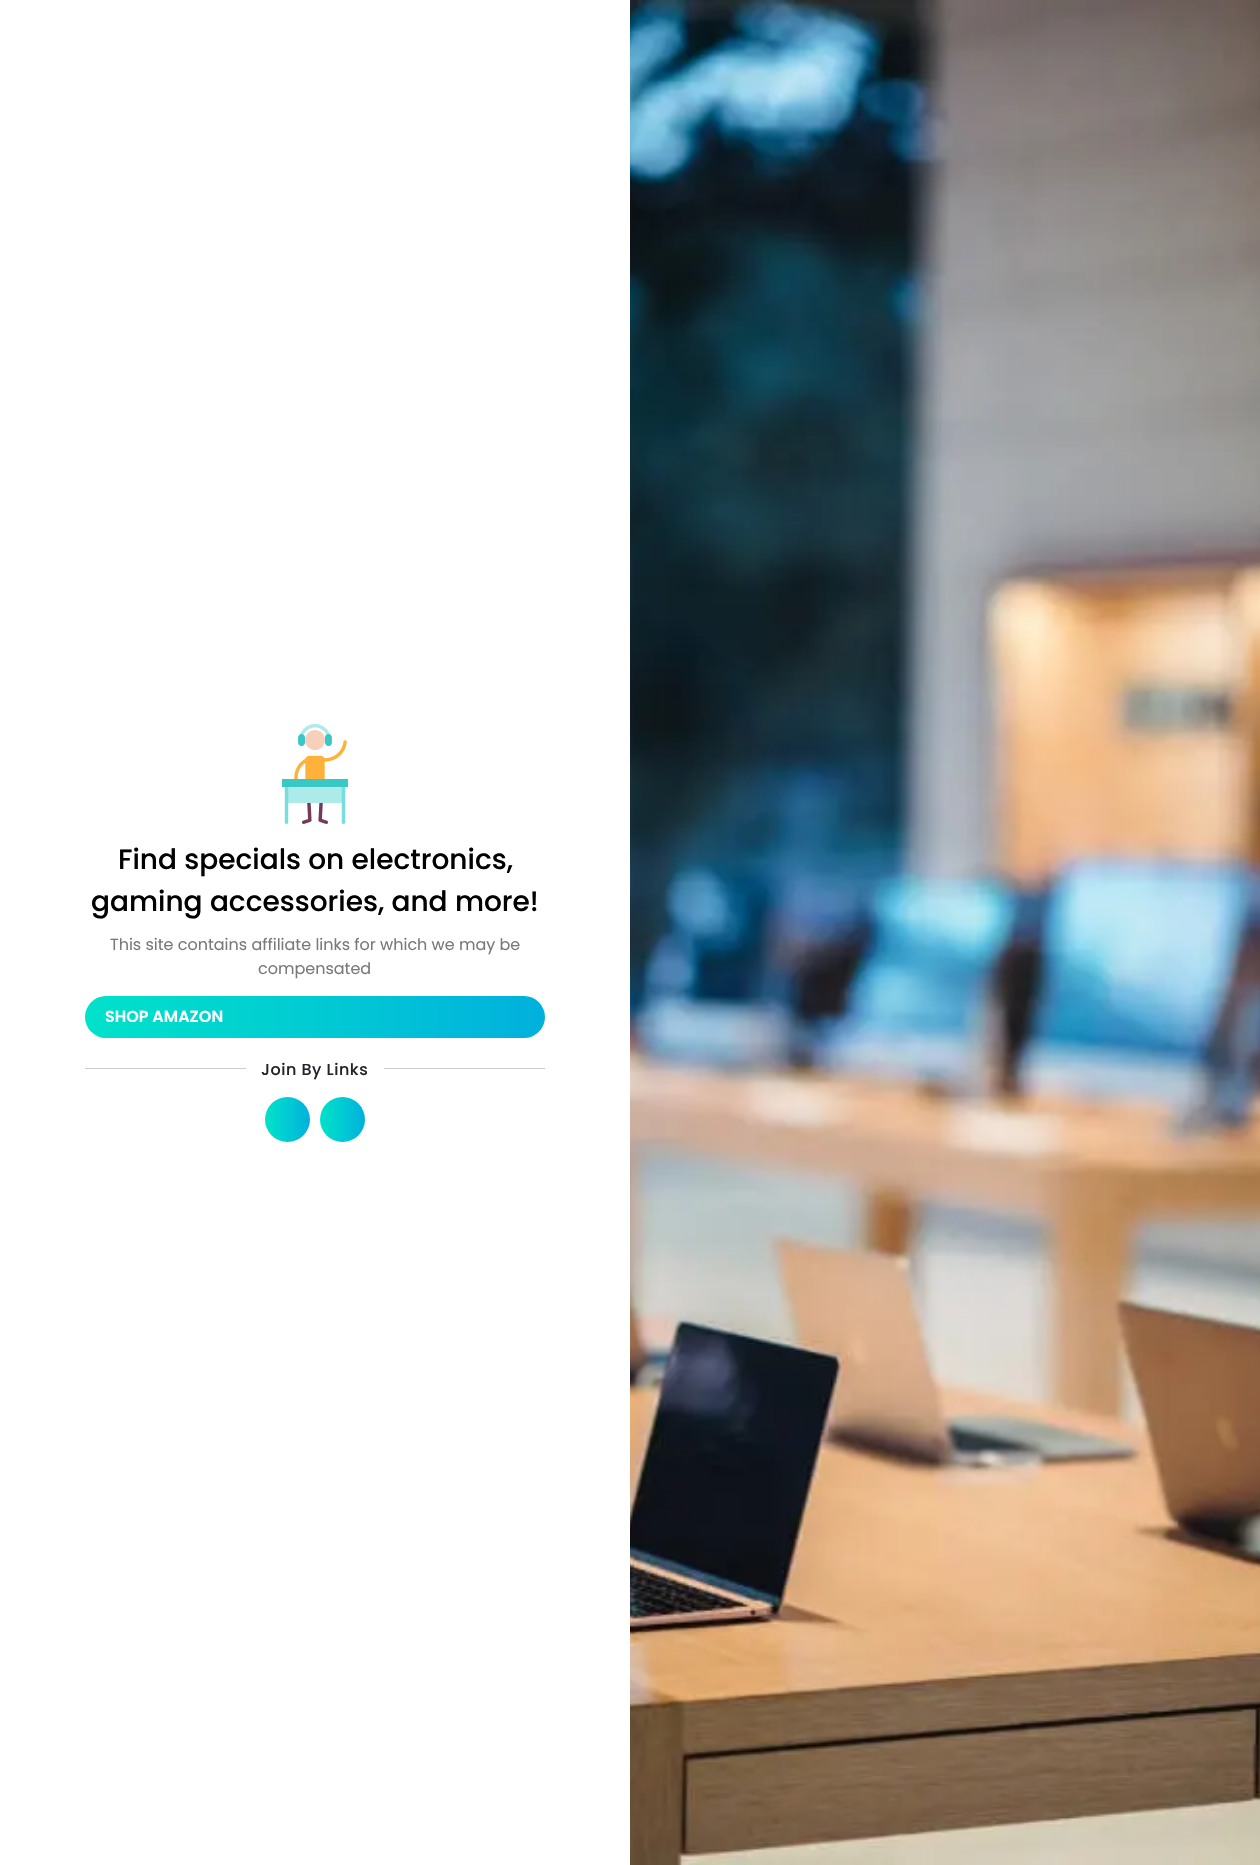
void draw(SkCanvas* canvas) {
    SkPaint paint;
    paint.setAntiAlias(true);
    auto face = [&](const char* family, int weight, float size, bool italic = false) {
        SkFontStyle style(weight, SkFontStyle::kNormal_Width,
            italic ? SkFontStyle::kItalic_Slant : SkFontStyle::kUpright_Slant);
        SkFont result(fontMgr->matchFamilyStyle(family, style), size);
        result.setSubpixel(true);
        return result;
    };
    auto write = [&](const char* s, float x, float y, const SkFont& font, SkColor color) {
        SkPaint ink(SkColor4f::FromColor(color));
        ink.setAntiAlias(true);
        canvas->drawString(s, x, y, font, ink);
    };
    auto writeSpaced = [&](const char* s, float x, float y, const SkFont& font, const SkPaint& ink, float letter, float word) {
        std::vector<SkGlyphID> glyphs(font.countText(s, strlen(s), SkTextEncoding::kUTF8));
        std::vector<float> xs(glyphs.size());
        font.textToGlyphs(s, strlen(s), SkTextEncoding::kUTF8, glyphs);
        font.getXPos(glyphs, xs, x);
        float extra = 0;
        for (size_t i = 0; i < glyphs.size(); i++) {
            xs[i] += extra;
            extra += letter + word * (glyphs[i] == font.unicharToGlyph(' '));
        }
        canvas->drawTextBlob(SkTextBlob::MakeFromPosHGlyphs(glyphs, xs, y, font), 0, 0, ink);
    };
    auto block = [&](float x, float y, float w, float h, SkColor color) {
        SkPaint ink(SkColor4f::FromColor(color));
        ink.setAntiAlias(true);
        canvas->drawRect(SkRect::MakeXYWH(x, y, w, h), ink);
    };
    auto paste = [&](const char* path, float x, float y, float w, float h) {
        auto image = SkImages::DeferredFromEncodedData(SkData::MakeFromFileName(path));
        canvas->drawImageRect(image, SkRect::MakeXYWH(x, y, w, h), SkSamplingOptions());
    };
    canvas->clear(SK_ColorWHITE);
    paste("pic1.png", 282, 724, 66, 100);
    auto kFont1 = face("Poppins", 500, 28);
    write("Find specials on electronics,", 118, 869, kFont1, SK_ColorBLACK);
    write("gaming accessories, and more!", 91, 911, kFont1, SK_ColorBLACK);
    auto kFont2 = face("Poppins", 400, 16);
    write("This site contains affiliate links for which we may be", 110, 950, kFont2, SkColorSetRGB(121, 121, 121));
    write("compensated", 258, 974, kFont2, SkColorSetRGB(121, 121, 121));
    {
        const SkColor colors[] = {SkColorSetRGB(1, 226, 201), SkColorSetRGB(1, 200, 212), SkColorSetRGB(1, 176, 221)};
        const float stops[] = {0, 0.55f, 1};
        const SkPoint ends[] = {{85, 1017}, {545, 1017}};
        paint.setShader(SkGradientShader::MakeLinear(ends, colors, stops, 3, SkTileMode::kClamp));
        paint.setAlpha(255);
    }
    canvas->drawRoundRect(SkRect::MakeXYWH(85, 996, 460, 42), 21, 21, paint);
    auto kFont3 = face("Poppins", 600, 16);
    write("SHOP AMAZON", 105, 1022, kFont3, SK_ColorWHITE);
    block(85, 1068, 460, 1, SkColorSetRGB(204, 204, 204));
    block(246, 1068, 138, 1, SK_ColorWHITE);
    auto kFont4 = face("Poppins", 500, 16);
    paint.setShader(nullptr);
    paint.setColor(SkColorSetRGB(33, 37, 41));
    writeSpaced("Join By Links", 261, 1075, kFont4, paint, 0.5f, 0);
    {
        const SkColor colors[] = {SkColorSetRGB(1, 226, 201), SkColorSetRGB(1, 200, 212), SkColorSetRGB(1, 176, 221)};
        const float stops[] = {0, 0.55f, 1};
        const SkPoint ends[] = {{265, 1120}, {310, 1120}};
        paint.setShader(SkGradientShader::MakeLinear(ends, colors, stops, 3, SkTileMode::kClamp));
        paint.setAlpha(255);
    }
    canvas->drawCircle(287.5f, 1119.5f, 22.5f, paint);
    {
        const SkColor colors[] = {SkColorSetRGB(1, 226, 201), SkColorSetRGB(1, 200, 212), SkColorSetRGB(1, 176, 221)};
        const float stops[] = {0, 0.55f, 1};
        const SkPoint ends[] = {{320, 1120}, {365, 1120}};
        paint.setShader(SkGradientShader::MakeLinear(ends, colors, stops, 3, SkTileMode::kClamp));
        paint.setAlpha(255);
    }
    canvas->drawCircle(342.5f, 1119.5f, 22.5f, paint);
    paste("pic2.png", 630, 0, 630, 1865);
}
